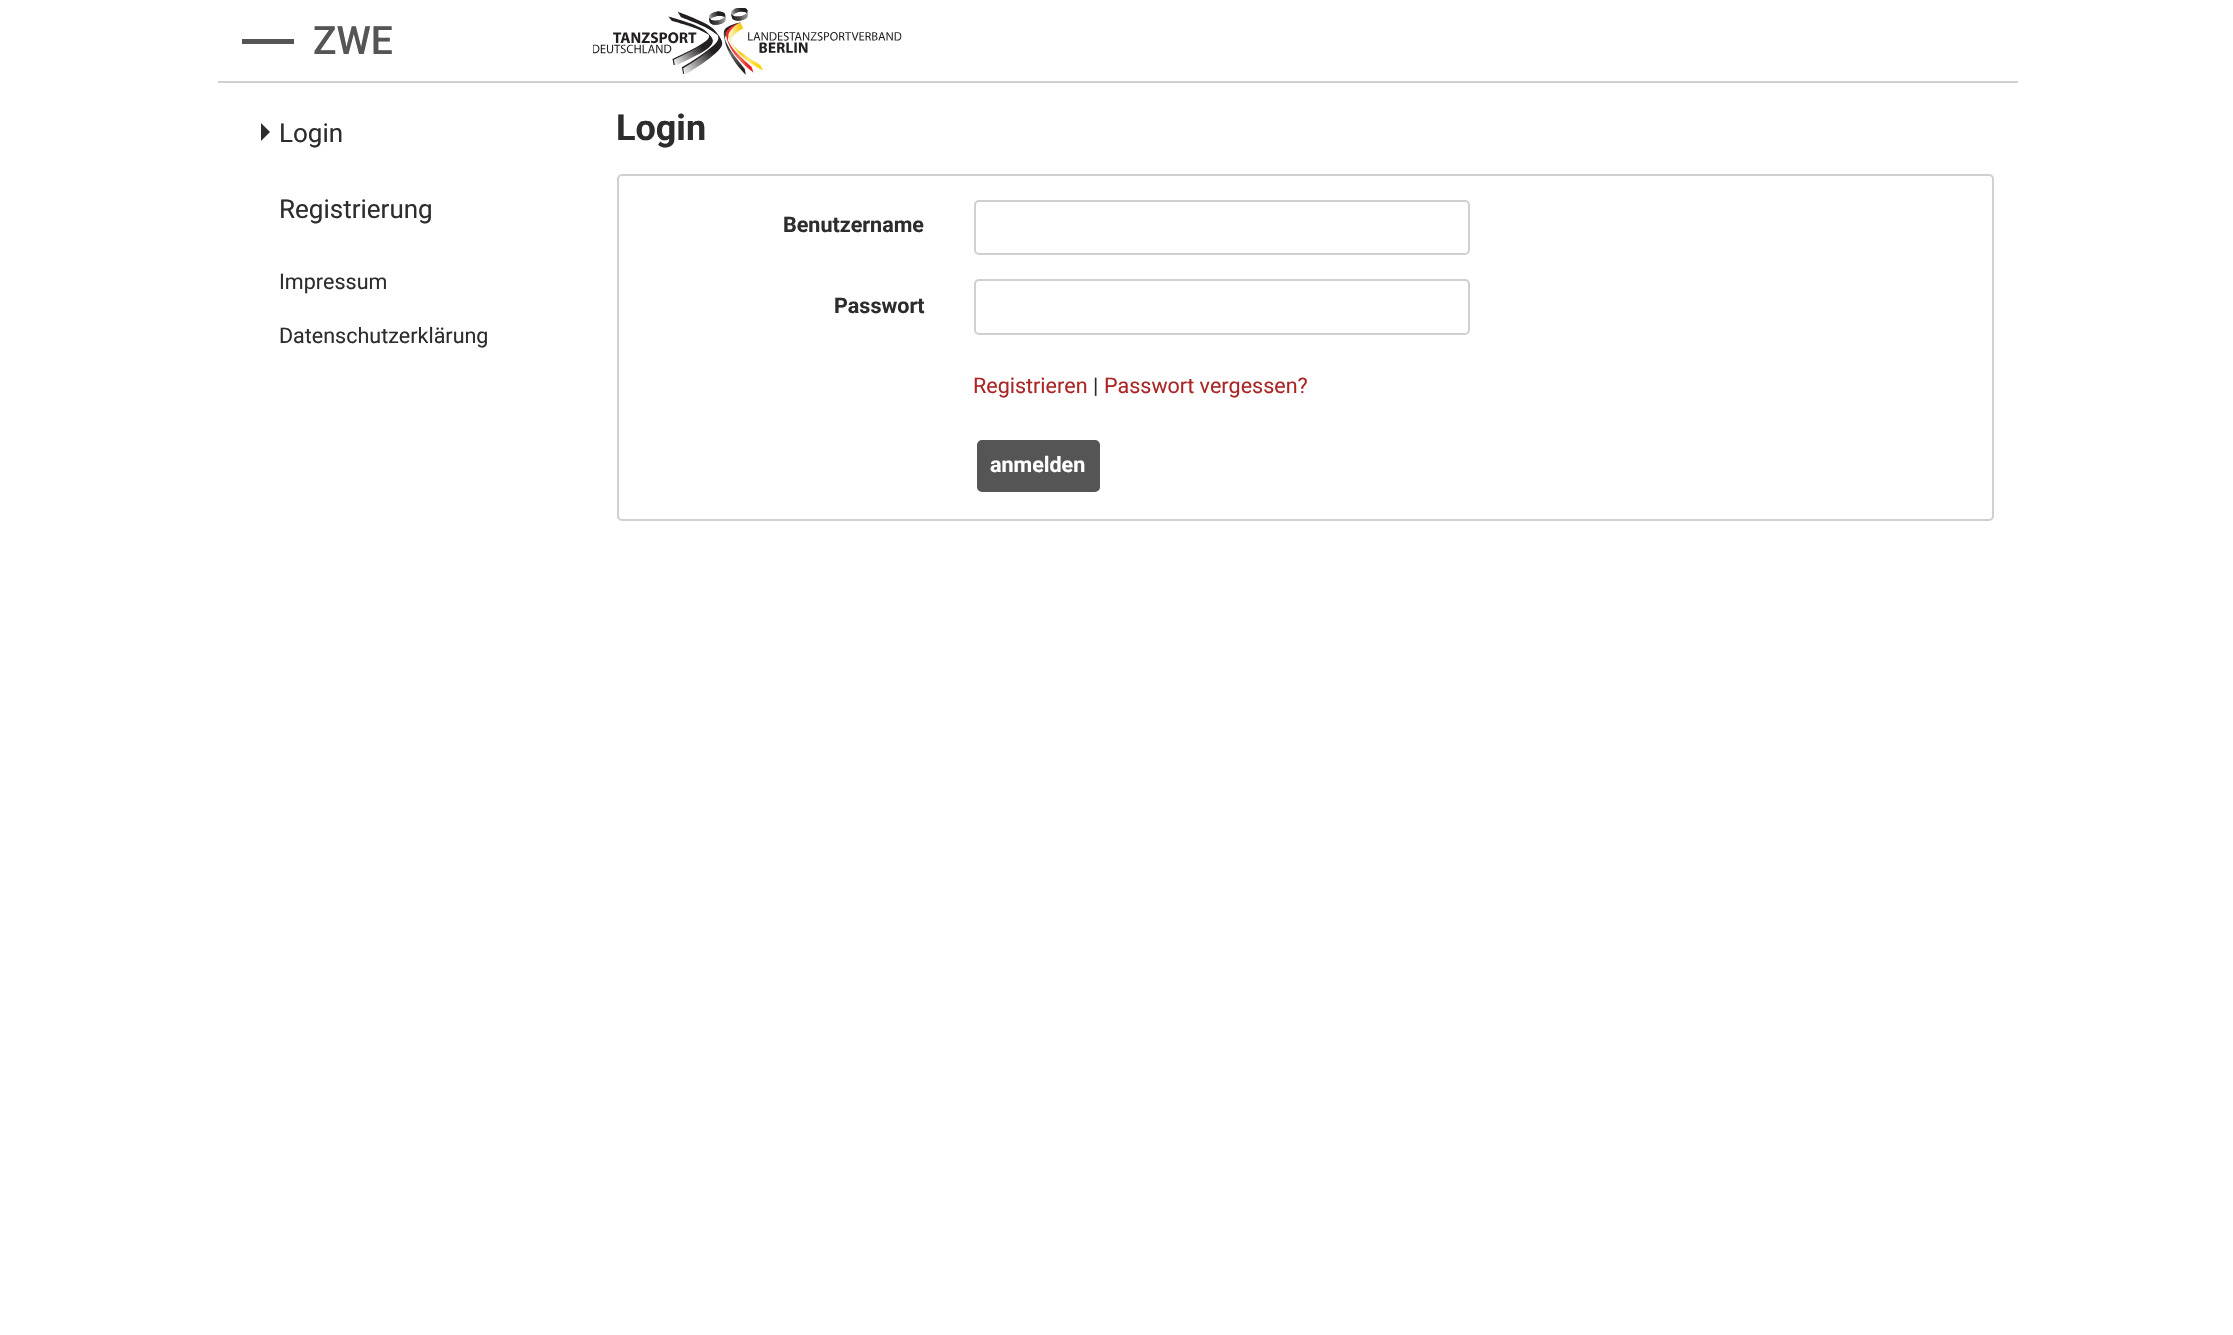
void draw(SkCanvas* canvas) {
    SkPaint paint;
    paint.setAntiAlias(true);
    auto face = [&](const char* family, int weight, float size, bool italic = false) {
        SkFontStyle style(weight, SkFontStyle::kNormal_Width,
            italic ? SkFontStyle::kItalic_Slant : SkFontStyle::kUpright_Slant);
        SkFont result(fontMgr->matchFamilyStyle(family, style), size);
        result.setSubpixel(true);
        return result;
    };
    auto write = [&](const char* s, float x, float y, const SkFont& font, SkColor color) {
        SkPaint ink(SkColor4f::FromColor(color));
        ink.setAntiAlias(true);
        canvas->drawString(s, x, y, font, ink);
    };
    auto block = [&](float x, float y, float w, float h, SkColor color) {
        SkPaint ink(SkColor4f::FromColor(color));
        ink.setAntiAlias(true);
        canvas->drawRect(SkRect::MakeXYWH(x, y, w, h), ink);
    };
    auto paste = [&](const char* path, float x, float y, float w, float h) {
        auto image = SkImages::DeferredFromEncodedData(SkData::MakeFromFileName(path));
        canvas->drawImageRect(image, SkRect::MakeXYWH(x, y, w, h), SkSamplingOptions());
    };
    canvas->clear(SK_ColorWHITE);
    block(218, 81, 1800, 2, SkColorSetRGB(208, 208, 208));
    block(242, 39, 52, 5, SkColorSetRGB(85, 85, 85));
    auto kFont1 = face("Roboto", 500, 39);
    write("ZWE", 313, 54, kFont1, SkColorSetRGB(85, 85, 85));
    paste("pic1.png", 593, 8, 309, 67);
    paint.setColor(SkColorSetRGB(45, 45, 45));
    canvas->drawPath(SkPathBuilder().moveTo(261, 141).lineTo(261, 123).lineTo(270, 132).close().detach(), paint);
    auto kFont2 = face("Roboto", 400, 26);
    write("Login", 279, 142, kFont2, SkColorSetRGB(45, 45, 45));
    write("Registrierung", 279, 218, kFont2, SkColorSetRGB(45, 45, 45));
    auto kFont3 = face("Roboto", 400, 21.5f);
    write("Impressum", 279, 289, kFont3, SkColorSetRGB(45, 45, 45));
    write("Datenschutzerklärung", 279, 343, kFont3, SkColorSetRGB(45, 45, 45));
    auto kFont4 = face("Roboto", 700, 36);
    write("Login", 616, 140, kFont4, SkColorSetRGB(45, 45, 45));
    paint.setStyle(SkPaint::kStroke_Style);
    paint.setStrokeWidth(2);
    paint.setColor(SkColorSetRGB(208, 208, 208));
    canvas->drawRoundRect(SkRect::MakeXYWH(618, 175, 1375, 345), 4, 4, paint);
    auto kFont5 = face("Roboto", 700, 21.5f);
    write("Benutzername", 783, 232, kFont5, SkColorSetRGB(45, 45, 45));
    canvas->drawRoundRect(SkRect::MakeXYWH(975, 201, 494, 53), 4, 4, paint);
    write("Passwort", 834, 313, kFont5, SkColorSetRGB(45, 45, 45));
    canvas->drawRoundRect(SkRect::MakeXYWH(975, 280, 494, 54), 4, 4, paint);
    write("Registrieren", 973, 393, kFont3, SkColorSetRGB(171, 39, 39));
    write("|", 1093, 393, kFont3, SkColorSetRGB(45, 45, 45));
    write("Passwort vergessen?", 1104, 393, kFont3, SkColorSetRGB(171, 39, 39));
    paint.setStyle(SkPaint::kFill_Style);
    paint.setColor(SkColorSetRGB(85, 85, 85));
    canvas->drawRoundRect(SkRect::MakeXYWH(978, 441, 121, 50), 4, 4, paint);
    paint.setStyle(SkPaint::kStroke_Style);
    canvas->drawRoundRect(SkRect::MakeXYWH(978, 441, 121, 50), 4, 4, paint);
    write("anmelden", 990, 472, kFont5, SK_ColorWHITE);
}
